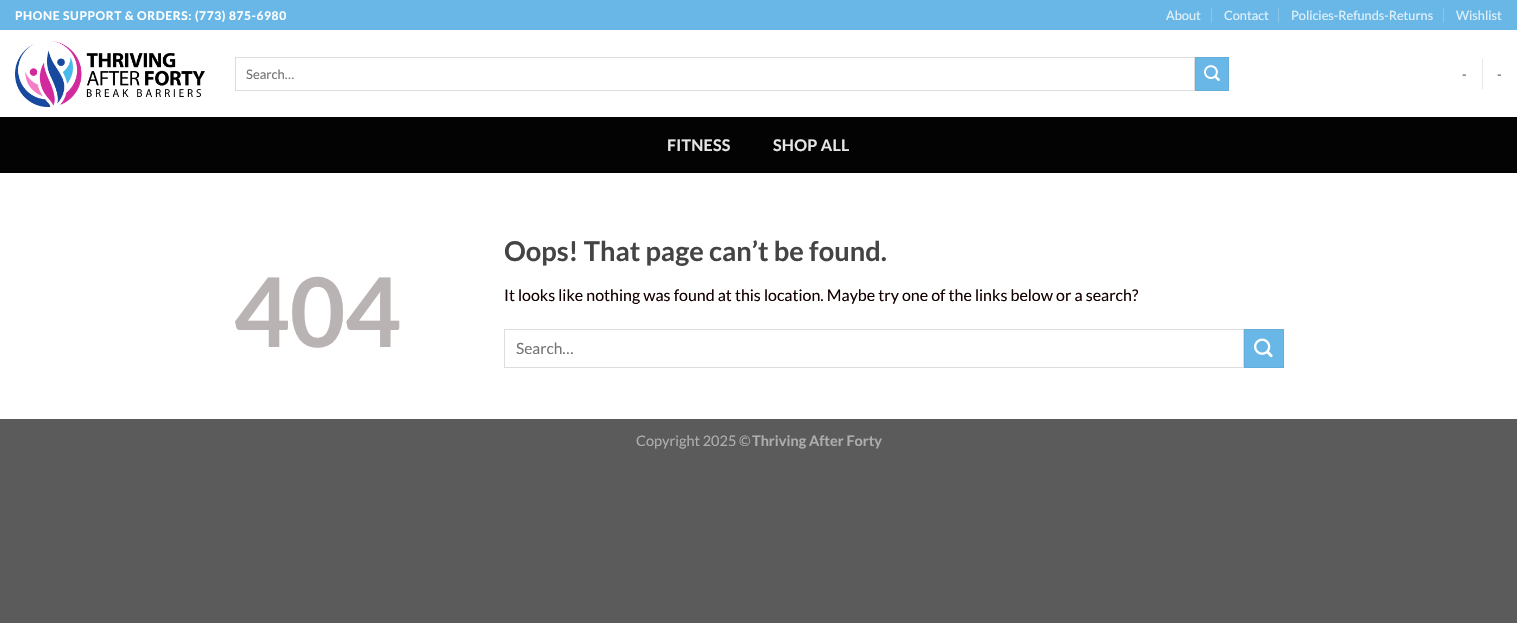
void draw(SkCanvas* canvas) {
    SkPaint paint;
    paint.setAntiAlias(true);
    auto face = [&](const char* family, int weight, float size, bool italic = false) {
        SkFontStyle style(weight, SkFontStyle::kNormal_Width,
            italic ? SkFontStyle::kItalic_Slant : SkFontStyle::kUpright_Slant);
        SkFont result(fontMgr->matchFamilyStyle(family, style), size);
        result.setSubpixel(true);
        return result;
    };
    auto write = [&](const char* s, float x, float y, const SkFont& font, SkColor color) {
        SkPaint ink(SkColor4f::FromColor(color));
        ink.setAntiAlias(true);
        canvas->drawString(s, x, y, font, ink);
    };
    auto writeSpaced = [&](const char* s, float x, float y, const SkFont& font, const SkPaint& ink, float letter, float word) {
        std::vector<SkGlyphID> glyphs(font.countText(s, strlen(s), SkTextEncoding::kUTF8));
        std::vector<float> xs(glyphs.size());
        font.textToGlyphs(s, strlen(s), SkTextEncoding::kUTF8, glyphs);
        font.getXPos(glyphs, xs, x);
        float extra = 0;
        for (size_t i = 0; i < glyphs.size(); i++) {
            xs[i] += extra;
            extra += letter + word * (glyphs[i] == font.unicharToGlyph(' '));
        }
        canvas->drawTextBlob(SkTextBlob::MakeFromPosHGlyphs(glyphs, xs, y, font), 0, 0, ink);
    };
    auto block = [&](float x, float y, float w, float h, SkColor color) {
        SkPaint ink(SkColor4f::FromColor(color));
        ink.setAntiAlias(true);
        canvas->drawRect(SkRect::MakeXYWH(x, y, w, h), ink);
    };
    auto paste = [&](const char* path, float x, float y, float w, float h) {
        auto image = SkImages::DeferredFromEncodedData(SkData::MakeFromFileName(path));
        canvas->drawImageRect(image, SkRect::MakeXYWH(x, y, w, h), SkSamplingOptions());
    };
    canvas->clear(SkColorSetRGB(91, 91, 91));
    block(0, 30, 1517, 389, SK_ColorWHITE);
    block(0, 0, 1517, 30, SkColorSetRGB(105, 183, 230));
    auto kFont1 = face("Lato", 700, 12);
    paint.setColor(SK_ColorWHITE);
    writeSpaced("PHONE SUPPORT & ORDERS: (773) 875-6980", 15, 20, kFont1, paint, 0.6f, 0);
    auto kFont2 = face("Lato", 400, 12.75f);
    write("About", 1166, 20, kFont2, SkColorSetRGB(225, 241, 250));
    block(1211, 8, 1, 15, SkColorSetRGB(135, 197, 235));
    write("Contact", 1224, 20, kFont2, SkColorSetRGB(225, 241, 250));
    block(1278, 8, 1, 15, SkColorSetRGB(135, 197, 235));
    write("Policies-Refunds-Returns", 1291, 20, kFont2, SkColorSetRGB(225, 241, 250));
    block(1443, 8, 1, 15, SkColorSetRGB(135, 197, 235));
    write("Wishlist", 1456, 20, kFont2, SkColorSetRGB(225, 241, 250));
    paste("pic1.png", 15, 41, 190, 66);
    paint.setStyle(SkPaint::kStroke_Style);
    paint.setStrokeWidth(1);
    paint.setColor(SkColorSetRGB(221, 221, 221));
    canvas->drawRect(SkRect::MakeXYWH(235.5f, 57.5f, 959, 33), paint);
    auto kFont3 = face("Lato", 400, 13);
    write("Search…", 246, 79, kFont3, SkColorSetRGB(117, 117, 117));
    paint.setStyle(SkPaint::kFill_Style);
    paint.setColor(SkColorSetRGB(105, 183, 230));
    canvas->drawRect(SkRect::MakeXYWH(1195.5f, 57.5f, 33, 33), paint);
    paint.setStyle(SkPaint::kStroke_Style);
    paint.setColor(SkColorSetRGB(100, 174, 219));
    canvas->drawRect(SkRect::MakeXYWH(1195.5f, 57.5f, 33, 33), paint);
    paste("pic2.png", 1204, 65, 16, 16);
    auto kFont4 = face("Lato", 700, 12.75f);
    write("-", 1462, 79, kFont4, SkColorSetRGB(125, 125, 125));
    block(1482, 59, 1, 30, SkColorSetRGB(230, 230, 230));
    write("-", 1497, 79, kFont4, SkColorSetRGB(125, 125, 125));
    block(0, 117, 1517, 56, SkColorSetRGB(3, 3, 3));
    auto kFont5 = face("Lato", 700, 16);
    paint.setStyle(SkPaint::kFill_Style);
    paint.setColor(SkColorSetRGB(229, 229, 229));
    writeSpaced("FITNESS", 667, 151, kFont5, paint, 0.25f, 0);
    writeSpaced("SHOP ALL", 773, 151, kFont5, paint, 0.25f, 0);
    auto kFont6 = face("Lato", 700, 96);
    write("404", 234, 347, kFont6, SkColorSetRGB(185, 179, 179));
    auto kFont7 = face("Lato", 700, 27.25f);
    write("Oops! That page can’t be found.", 504, 261, kFont7, SkColorSetRGB(68, 68, 68));
    auto kFont8 = face("Lato", 400, 16);
    write("It looks like nothing was found at this location. Maybe try one of the links below or a search?", 504, 301, kFont8, SkColorSetRGB(20, 0, 0));
    paint.setStyle(SkPaint::kStroke_Style);
    paint.setColor(SkColorSetRGB(221, 221, 221));
    canvas->drawRect(SkRect::MakeXYWH(504.5f, 329.5f, 739, 38), paint);
    auto kFont9 = face("Lato", 400, 15.5f);
    write("Search…", 516, 354, kFont9, SkColorSetRGB(117, 117, 117));
    paint.setStyle(SkPaint::kFill_Style);
    paint.setColor(SkColorSetRGB(105, 183, 230));
    canvas->drawRect(SkRect::MakeXYWH(1244.5f, 329.5f, 39, 38), paint);
    paint.setStyle(SkPaint::kStroke_Style);
    paint.setColor(SkColorSetRGB(100, 174, 219));
    canvas->drawRect(SkRect::MakeXYWH(1244.5f, 329.5f, 39, 38), paint);
    paste("pic3.png", 1254, 338, 19, 20);
    auto kFont10 = face("Lato", 400, 14.5f);
    write("Copyright 2025 ©", 636, 446, kFont10, SkColorSetRGB(173, 173, 173));
    auto kFont11 = face("Lato", 700, 14.5f);
    write("Thriving After Forty", 752, 446, kFont11, SkColorSetRGB(173, 173, 173));
}
